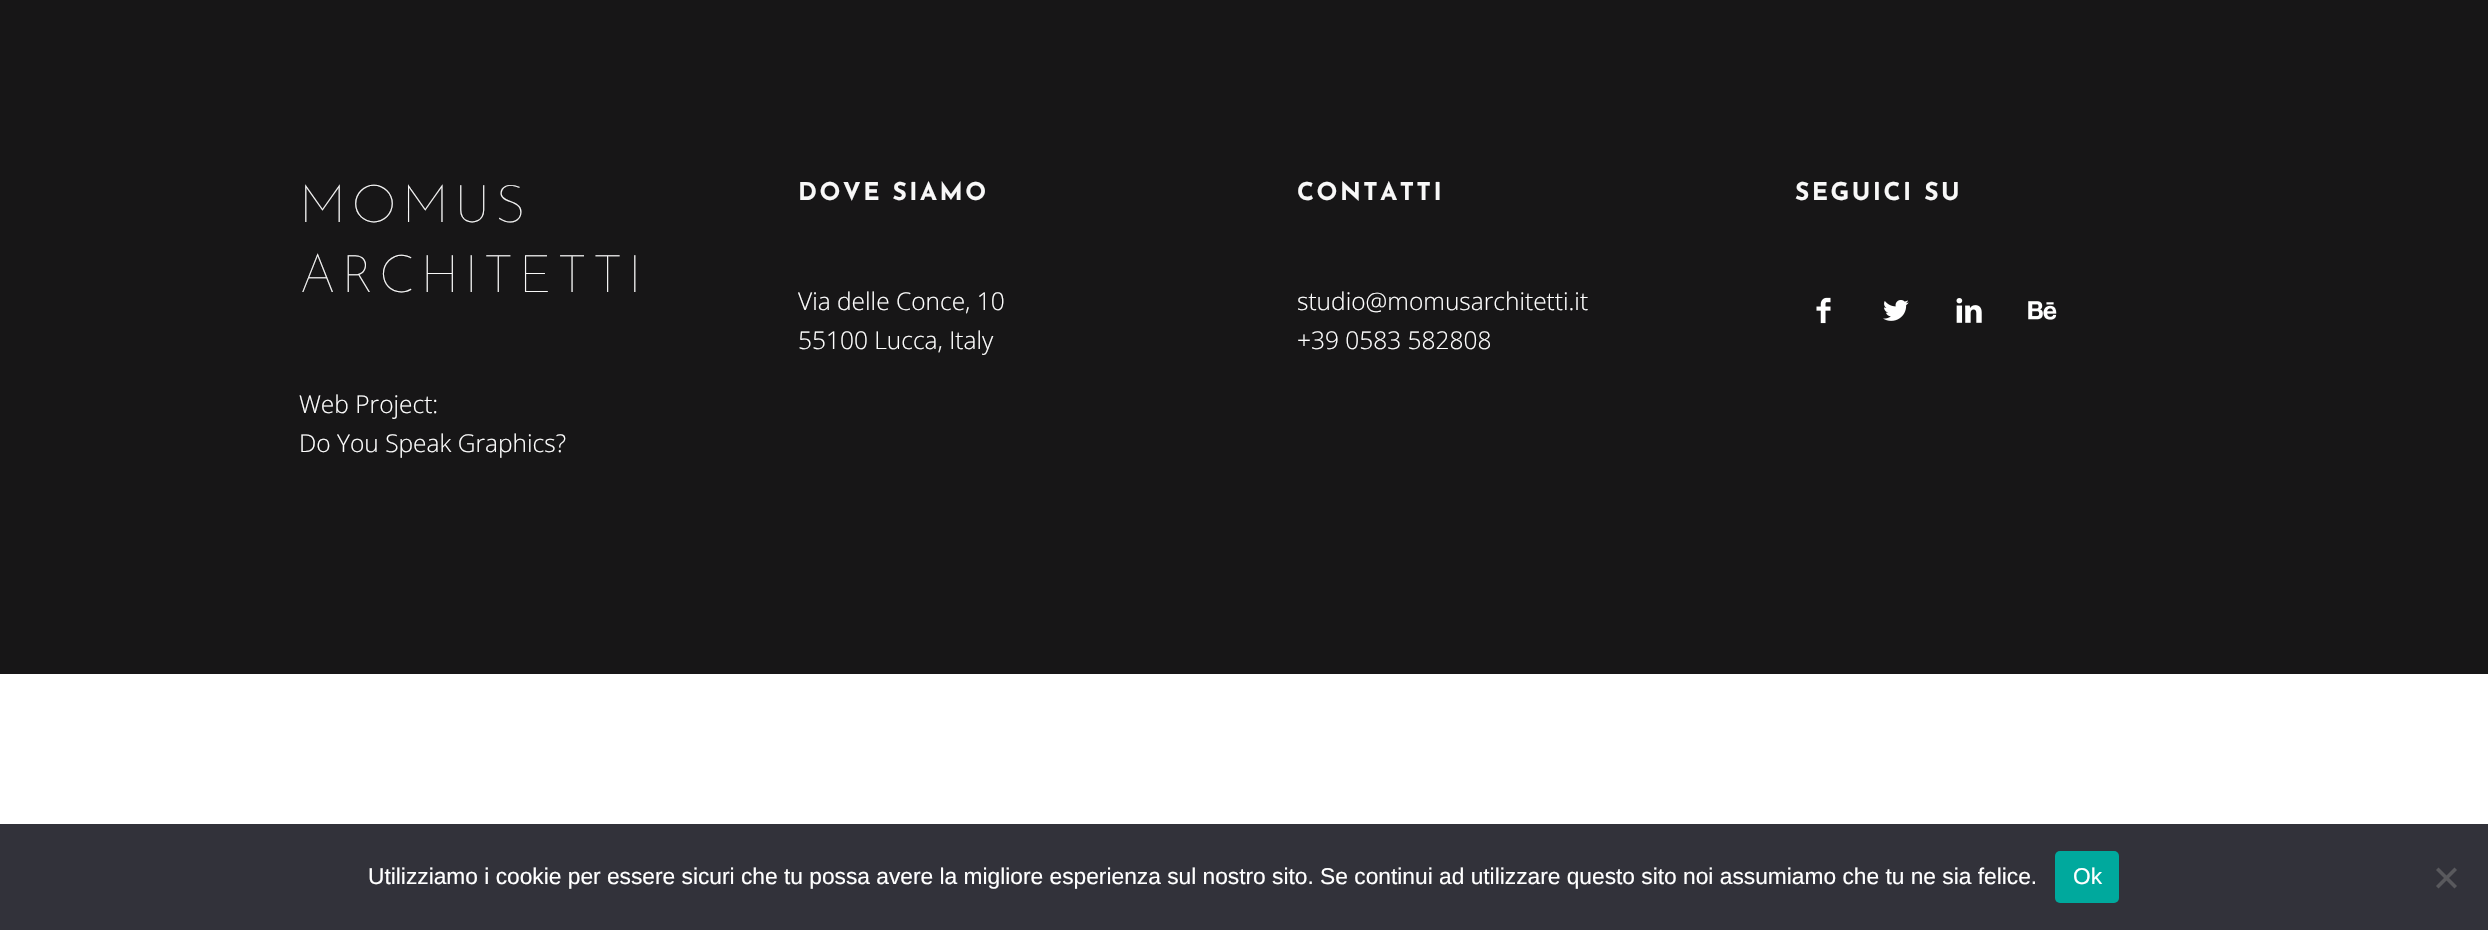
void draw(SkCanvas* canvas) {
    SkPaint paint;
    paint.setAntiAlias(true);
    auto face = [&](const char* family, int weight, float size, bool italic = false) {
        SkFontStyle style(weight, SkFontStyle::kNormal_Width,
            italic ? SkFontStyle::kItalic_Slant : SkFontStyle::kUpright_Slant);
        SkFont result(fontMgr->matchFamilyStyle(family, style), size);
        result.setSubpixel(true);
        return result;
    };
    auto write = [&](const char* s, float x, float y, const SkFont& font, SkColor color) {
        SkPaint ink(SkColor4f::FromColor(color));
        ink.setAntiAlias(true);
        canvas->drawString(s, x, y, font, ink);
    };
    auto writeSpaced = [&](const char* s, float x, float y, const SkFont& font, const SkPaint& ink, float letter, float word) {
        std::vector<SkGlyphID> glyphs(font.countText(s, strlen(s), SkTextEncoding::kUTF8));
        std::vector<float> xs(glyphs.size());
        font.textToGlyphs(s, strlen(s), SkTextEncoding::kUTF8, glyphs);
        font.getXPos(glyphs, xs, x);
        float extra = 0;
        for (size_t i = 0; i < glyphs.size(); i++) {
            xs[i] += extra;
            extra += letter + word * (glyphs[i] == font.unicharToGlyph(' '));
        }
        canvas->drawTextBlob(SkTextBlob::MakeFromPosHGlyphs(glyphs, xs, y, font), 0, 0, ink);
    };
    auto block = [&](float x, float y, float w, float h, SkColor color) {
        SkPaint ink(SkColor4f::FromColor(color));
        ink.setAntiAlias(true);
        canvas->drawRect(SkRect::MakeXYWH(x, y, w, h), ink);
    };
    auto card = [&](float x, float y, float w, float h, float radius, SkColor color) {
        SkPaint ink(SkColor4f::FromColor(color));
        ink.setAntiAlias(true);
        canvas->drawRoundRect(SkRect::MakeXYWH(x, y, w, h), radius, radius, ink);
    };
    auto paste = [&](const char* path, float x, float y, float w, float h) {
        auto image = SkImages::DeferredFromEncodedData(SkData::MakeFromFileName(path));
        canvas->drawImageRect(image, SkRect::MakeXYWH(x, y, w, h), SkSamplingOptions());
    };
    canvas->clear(SK_ColorWHITE);
    block(0, 0, 2488, 674, SkColorSetRGB(23, 22, 23));
    auto kFont1 = face("Josefin Sans", 100, 52.5f);
    paint.setColor(SkColorSetRGB(248, 248, 248));
    writeSpaced("MOMUS", 299, 222, kFont1, paint, 5.25f, 0);
    writeSpaced("ARCHITETTI", 299, 292, kFont1, paint, 5.25f, 0);
    auto kFont2 = face("Open Sans", 300, 24.5f);
    write("Web Project:", 299, 413, kFont2, SK_ColorWHITE);
    write("Do You Speak Graphics?", 299, 452, kFont2, SK_ColorWHITE);
    auto kFont3 = face("Josefin Sans", 700, 24.5f);
    writeSpaced("DOVE SIAMO", 798, 200, kFont3, paint, 2.5f, 0);
    write("Via delle Conce, 10", 798, 310, kFont2, SK_ColorWHITE);
    write("55100 Lucca, Italy", 798, 349, kFont2, SK_ColorWHITE);
    writeSpaced("CONTATTI", 1297, 200, kFont3, paint, 2.5f, 0);
    write("studio@momusarchitetti.it", 1297, 310, kFont2, SK_ColorWHITE);
    write("+39 0583 582808", 1297, 349, kFont2, SK_ColorWHITE);
    writeSpaced("SEGUICI SU", 1795, 200, kFont3, paint, 2.5f, 0);
    paste("pic1.png", 1816, 297, 15, 27);
    paste("pic2.png", 1883, 300, 26, 21);
    paste("pic3.png", 1956, 298, 26, 25);
    paste("pic4.png", 2028, 301, 29, 19);
    block(0, 824, 2488, 106, SkColorSetRGB(50, 50, 58));
    auto kFont4 = face("Liberation Sans", 400, 22.75f);
    write("Utilizziamo i cookie per essere sicuri che tu possa avere la migliore esperienza sul nostro sito. Se continui ad utilizzare questo sito noi assumiamo che tu ne sia felice.", 368, 884, kFont4, SK_ColorWHITE);
    card(2055, 851, 64, 52, 5, SkColorSetRGB(0, 169, 157));
    write("Ok", 2073, 884, kFont4, SK_ColorWHITE);
    paint.setColor(SkColorSetRGB(89, 89, 93));
    canvas->drawPath(SkPathBuilder().moveTo(2454.5f, 867.5f).lineTo(2457, 870).lineTo(2438.5f, 888.5f).lineTo(2436, 886).close().detach(), paint);
    canvas->drawPath(SkPathBuilder().moveTo(2436, 870).lineTo(2438.5f, 867.5f).lineTo(2457, 886).lineTo(2454.5f, 888.5f).close().detach(), paint);
}
